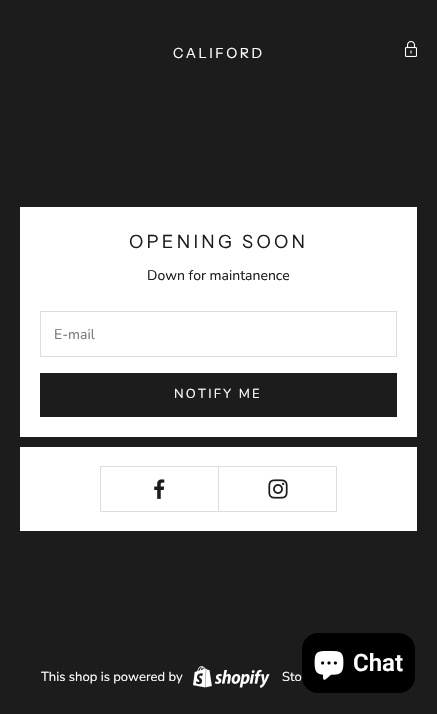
void draw(SkCanvas* canvas) {
    SkPaint paint;
    paint.setAntiAlias(true);
    auto face = [&](const char* family, int weight, float size, bool italic = false) {
        SkFontStyle style(weight, SkFontStyle::kNormal_Width,
            italic ? SkFontStyle::kItalic_Slant : SkFontStyle::kUpright_Slant);
        SkFont result(fontMgr->matchFamilyStyle(family, style), size);
        result.setSubpixel(true);
        return result;
    };
    auto write = [&](const char* s, float x, float y, const SkFont& font, SkColor color) {
        SkPaint ink(SkColor4f::FromColor(color));
        ink.setAntiAlias(true);
        canvas->drawString(s, x, y, font, ink);
    };
    auto writeSpaced = [&](const char* s, float x, float y, const SkFont& font, const SkPaint& ink, float letter, float word) {
        std::vector<SkGlyphID> glyphs(font.countText(s, strlen(s), SkTextEncoding::kUTF8));
        std::vector<float> xs(glyphs.size());
        font.textToGlyphs(s, strlen(s), SkTextEncoding::kUTF8, glyphs);
        font.getXPos(glyphs, xs, x);
        float extra = 0;
        for (size_t i = 0; i < glyphs.size(); i++) {
            xs[i] += extra;
            extra += letter + word * (glyphs[i] == font.unicharToGlyph(' '));
        }
        canvas->drawTextBlob(SkTextBlob::MakeFromPosHGlyphs(glyphs, xs, y, font), 0, 0, ink);
    };
    auto block = [&](float x, float y, float w, float h, SkColor color) {
        SkPaint ink(SkColor4f::FromColor(color));
        ink.setAntiAlias(true);
        canvas->drawRect(SkRect::MakeXYWH(x, y, w, h), ink);
    };
    auto card = [&](float x, float y, float w, float h, float radius, SkColor color) {
        SkPaint ink(SkColor4f::FromColor(color));
        ink.setAntiAlias(true);
        canvas->drawRoundRect(SkRect::MakeXYWH(x, y, w, h), radius, radius, ink);
    };
    auto paste = [&](const char* path, float x, float y, float w, float h) {
        auto image = SkImages::DeferredFromEncodedData(SkData::MakeFromFileName(path));
        canvas->drawImageRect(image, SkRect::MakeXYWH(x, y, w, h), SkSamplingOptions());
    };
    canvas->clear(SkColorSetRGB(28, 28, 28));
    auto kFont1 = face("Instrument Sans", 400, 14);
    paint.setColor(SK_ColorWHITE);
    writeSpaced("CALIFORD", 173, 58, kFont1, paint, 2.5f, 0);
    paste("pic1.png", 405, 41, 12, 16);
    block(20, 207, 397, 230, SK_ColorWHITE);
    auto kFont2 = face("Instrument Sans", 400, 18.25f);
    paint.setColor(SkColorSetRGB(28, 28, 28));
    writeSpaced("OPENING SOON", 129, 248, kFont2, paint, 3.25f, 0);
    auto kFont3 = face("Nunito", 400, 14);
    write("Down for maintanence", 147, 280, kFont3, SkColorSetRGB(28, 28, 28));
    paint.setStyle(SkPaint::kStroke_Style);
    paint.setStrokeWidth(1);
    paint.setColor(SkColorSetRGB(221, 221, 221));
    canvas->drawRect(SkRect::MakeXYWH(40.5f, 311.5f, 356, 45), paint);
    write("E-mail", 54, 339, kFont3, SkColorSetRGB(119, 119, 119));
    paint.setStyle(SkPaint::kFill_Style);
    paint.setColor(SkColorSetRGB(28, 28, 28));
    canvas->drawRect(SkRect::MakeXYWH(40.5f, 373.5f, 356, 43), paint);
    paint.setStyle(SkPaint::kStroke_Style);
    canvas->drawRect(SkRect::MakeXYWH(40.5f, 373.5f, 356, 43), paint);
    auto kFont4 = face("Nunito", 400, 13);
    paint.setStyle(SkPaint::kFill_Style);
    paint.setColor(SK_ColorWHITE);
    writeSpaced("NOTIFY ME", 174, 398, kFont4, paint, 2.25f, 0);
    block(20, 447, 397, 84, SK_ColorWHITE);
    paint.setStyle(SkPaint::kStroke_Style);
    paint.setColor(SkColorSetRGB(221, 221, 221));
    canvas->drawRect(SkRect::MakeXYWH(100.5f, 466.5f, 118, 45), paint);
    paste("pic2.png", 154, 479, 11, 20);
    canvas->drawRect(SkRect::MakeXYWH(218.5f, 466.5f, 118, 45), paint);
    paste("pic3.png", 268, 479, 20, 20);
    write("This shop is powered by", 41, 681, kFont4, SK_ColorWHITE);
    paste("pic4.png", 193, 666, 77, 22);
    write("Sto", 282, 681, kFont4, SK_ColorWHITE);
    card(302, 633, 113, 60, 16, SK_ColorBLACK);
    paste("pic5.png", 314, 651, 30, 29);
    auto kFont5 = face("Roboto", 600, 24);
    write("Chat", 353, 671, kFont5, SK_ColorWHITE);
}
